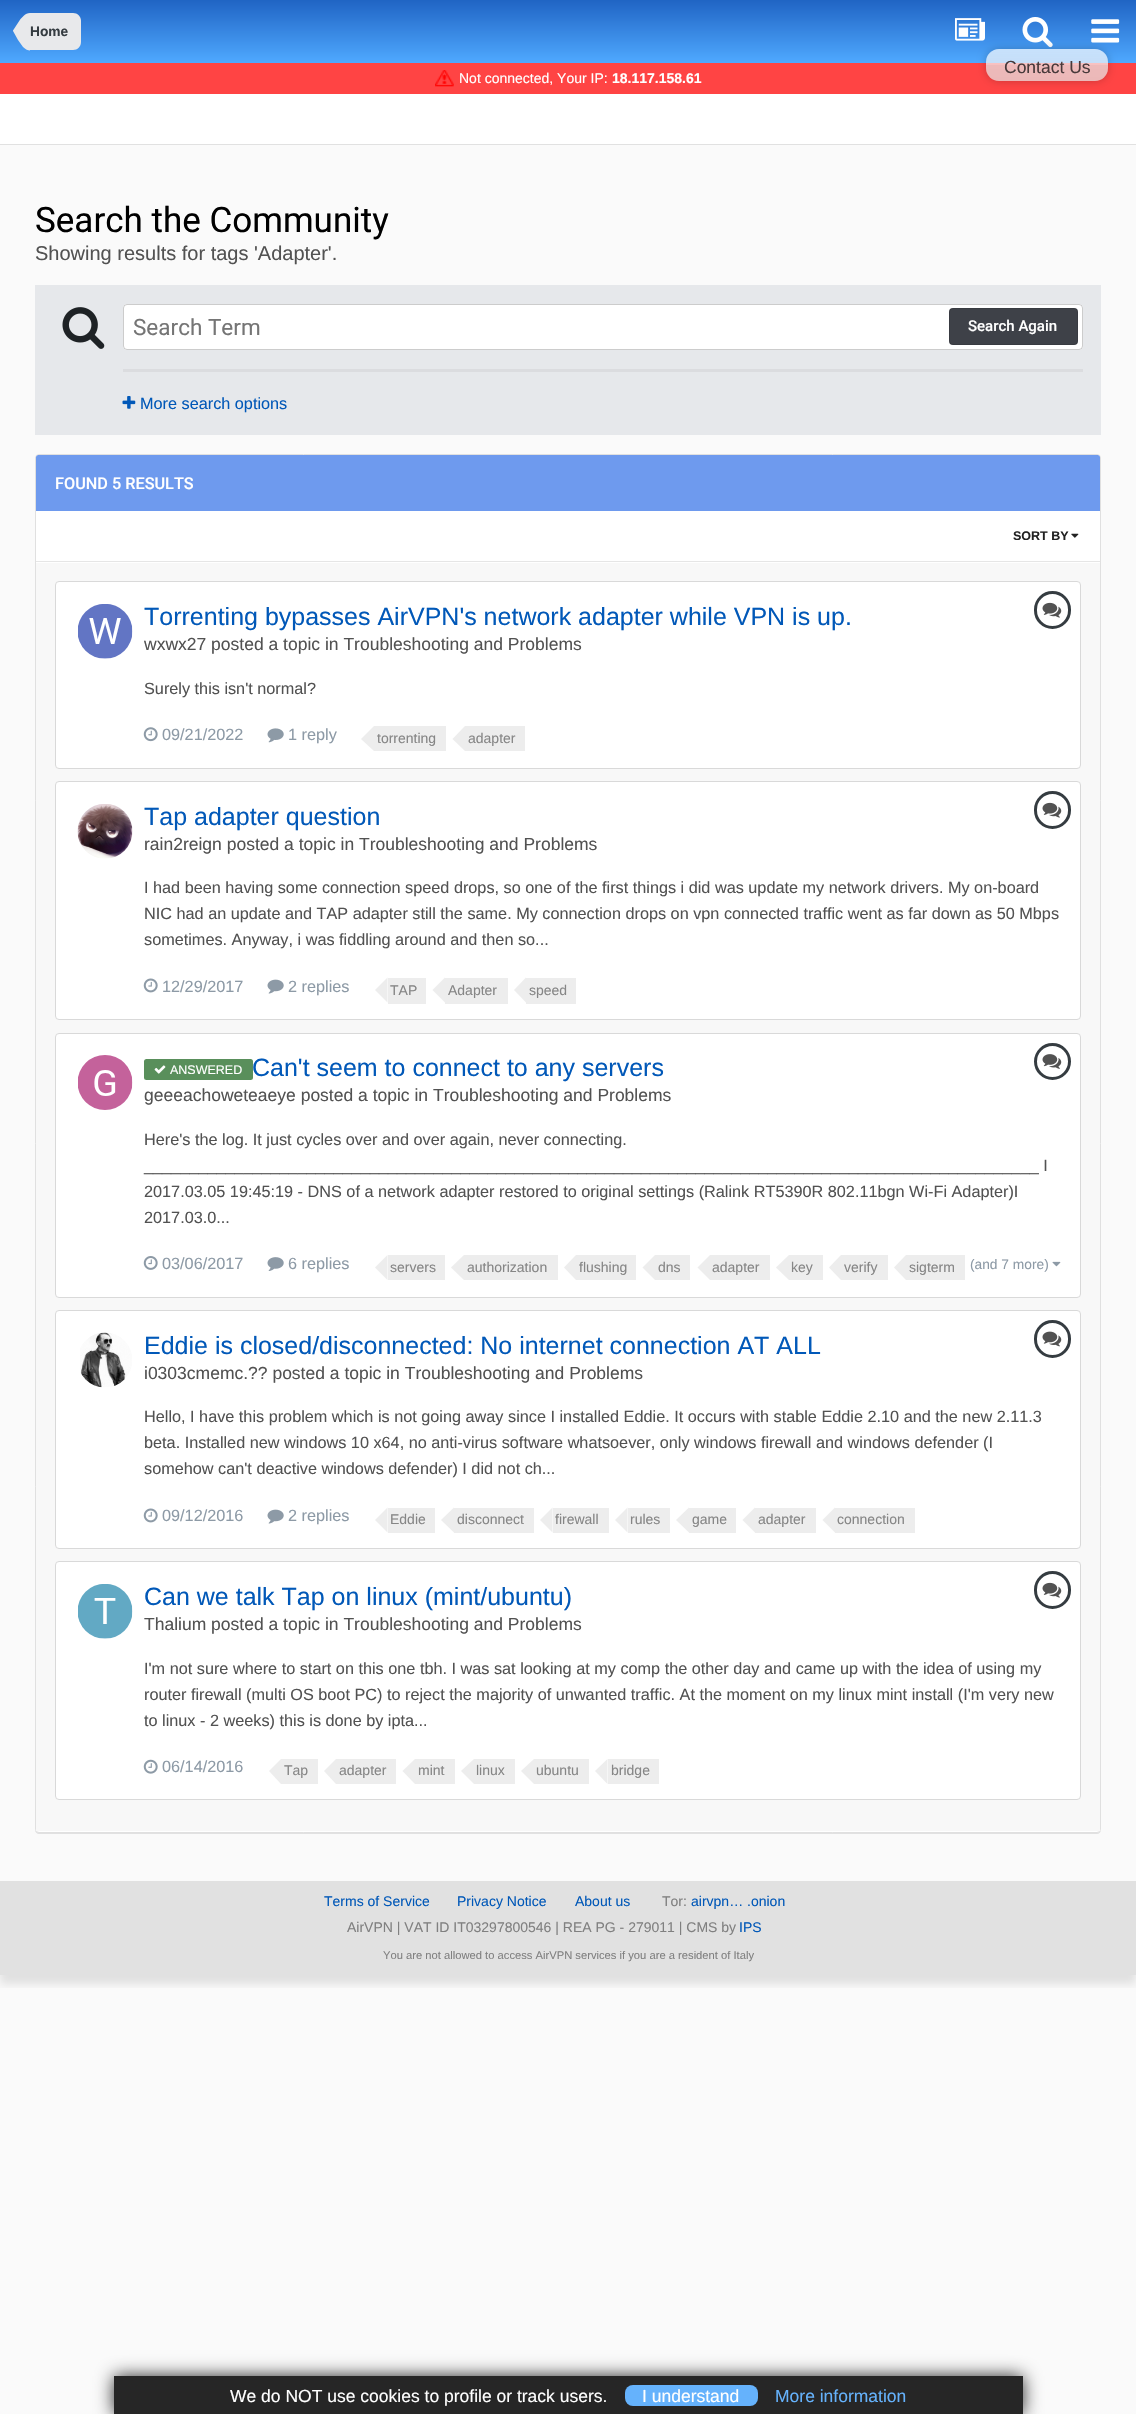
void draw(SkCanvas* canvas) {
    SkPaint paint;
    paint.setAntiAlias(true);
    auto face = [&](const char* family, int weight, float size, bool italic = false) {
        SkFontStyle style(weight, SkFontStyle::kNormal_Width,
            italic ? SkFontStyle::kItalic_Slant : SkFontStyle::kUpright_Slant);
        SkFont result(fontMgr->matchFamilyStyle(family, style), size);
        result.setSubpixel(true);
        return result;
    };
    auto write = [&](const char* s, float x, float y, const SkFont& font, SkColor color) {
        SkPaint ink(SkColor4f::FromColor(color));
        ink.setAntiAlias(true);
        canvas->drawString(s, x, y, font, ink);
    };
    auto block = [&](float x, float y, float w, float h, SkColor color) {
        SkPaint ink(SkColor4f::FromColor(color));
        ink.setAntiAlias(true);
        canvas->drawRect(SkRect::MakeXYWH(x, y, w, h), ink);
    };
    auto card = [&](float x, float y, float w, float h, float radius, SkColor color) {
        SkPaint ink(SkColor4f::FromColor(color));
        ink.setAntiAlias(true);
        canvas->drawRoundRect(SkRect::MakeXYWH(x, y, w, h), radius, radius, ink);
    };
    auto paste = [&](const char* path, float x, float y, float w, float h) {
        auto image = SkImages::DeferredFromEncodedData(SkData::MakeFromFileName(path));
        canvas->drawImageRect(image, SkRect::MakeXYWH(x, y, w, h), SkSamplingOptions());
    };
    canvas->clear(SkColorSetRGB(250, 250, 250));
    block(0, 144, 1136, 1, SkColorSetRGB(225, 225, 225));
    {
        const SkColor colors[] = {SkColorSetRGB(32, 100, 196), SkColorSetRGB(79, 169, 255)};
        const float stops[] = {0, 1};
        const SkPoint ends[] = {{568, 0}, {568, 63}};
        paint.setShader(SkGradientShader::MakeLinear(ends, colors, stops, 2, SkTileMode::kClamp));
        paint.setAlpha(255);
    }
    canvas->drawRect(SkRect::MakeXYWH(0, 0, 1136, 63), paint);
    paint.setShader(nullptr);
    paint.setColor(SkColorSetRGB(232, 233, 235));
    canvas->drawPath(SkPathBuilder().moveTo(30, 13).lineTo(73, 13).cubicTo(77.5f, 13, 81, 16.5f, 81, 21).lineTo(81, 42).cubicTo(81, 46.5f, 77.5f, 50, 73, 50).lineTo(30, 50).close().detach(), paint);
    canvas->drawPath(SkPathBuilder().moveTo(13, 31).lineTo(30, 31).lineTo(30, 50.5f).cubicTo(28, 50.5f, 25.5f, 49.5f, 23, 47).lineTo(18, 40).close().moveTo(30, 13).lineTo(30, 31).lineTo(13, 31).lineTo(13, 30.5f).lineTo(20.5f, 19).lineTo(24, 15.5f).cubicTo(25.5f, 14, 27.5f, 13, 30, 13).close().detach(), paint);
    auto kFont1 = face("Liberation Sans", 700, 13.75f);
    write("Home", 30, 36, kFont1, SkColorSetRGB(53, 60, 65));
    paste("pic1.png", 955, 18, 30, 23);
    paste("pic2.png", 1022, 17, 31, 31);
    paste("pic3.png", 1091, 19, 29, 24);
    block(0, 94, 1136, 50, SK_ColorWHITE);
    block(0, 63, 1136, 31, SkColorSetRGB(255, 68, 68));
    canvas->save();
    canvas->clipPath(SkPathBuilder(SkPathFillType::kEvenOdd).moveTo(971, 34).lineTo(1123, 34).lineTo(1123, 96).lineTo(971, 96).close().moveTo(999, 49).lineTo(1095, 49).cubicTo(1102, 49, 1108, 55, 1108, 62).lineTo(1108, 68).cubicTo(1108, 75, 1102, 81, 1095, 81).lineTo(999, 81).cubicTo(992, 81, 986, 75, 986, 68).lineTo(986, 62).cubicTo(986, 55, 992, 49, 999, 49).close().detach(), true);
    paint.setColor(SkColorSetARGB(54, 0, 0, 0));
    paint.setMaskFilter(SkMaskFilter::MakeBlur(kNormal_SkBlurStyle, 4.5f));
    canvas->drawRoundRect(SkRect::MakeXYWH(986, 49, 122, 32), 13, 13, paint);
    paint.setMaskFilter(nullptr);
    canvas->restore();
    card(986, 49, 122, 32, 13, SkColorSetARGB(179, 255, 255, 255));
    {
        const SkColor colors[] = {SkColorSetARGB(0, 0, 0, 0), SkColorSetARGB(8, 0, 0, 0), SkColorSetARGB(18, 0, 0, 0), SkColorSetARGB(20, 0, 0, 0)};
        const float stops[] = {0, 0.5f, 0.51f, 1};
        const SkPoint ends[] = {{1047, 49}, {1047, 81}};
        paint.setShader(SkGradientShader::MakeLinear(ends, colors, stops, 4, SkTileMode::kClamp));
        paint.setAlpha(255);
    }
    canvas->drawRoundRect(SkRect::MakeXYWH(986, 49, 122, 32), 13, 13, paint);
    auto kFont2 = face("Liberation Sans", 400, 17.5f);
    write("Contact Us", 1004, 73, kFont2, SkColorSetRGB(71, 57, 58));
    paste("pic4.png", 435, 70, 19, 17);
    auto kFont3 = face("Liberation Sans", 400, 14);
    write("Not connected, Your IP:", 459, 83, kFont3, SK_ColorWHITE);
    auto kFont4 = face("Liberation Sans", 700, 14);
    write("18.117.158.61", 612, 83, kFont4, SK_ColorWHITE);
    canvas->save();
    canvas->clipRect(SkRect::MakeXYWH(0, 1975, 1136, 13));
    paint.setShader(nullptr);
    paint.setColor(SkColorSetARGB(26, 0, 0, 0));
    paint.setMaskFilter(SkMaskFilter::MakeBlur(kNormal_SkBlurStyle, 4.5f));
    canvas->drawRect(SkRect::MakeXYWH(0, 154, 1136, 1830), paint);
    paint.setMaskFilter(nullptr);
    canvas->restore();
    auto kFont5 = face("Roboto", 400, 35);
    write("Search the Community", 35, 232, kFont5, SK_ColorBLACK);
    auto kFont6 = face("Liberation Sans", 400, 20);
    write("Showing results for tags 'Adapter'.", 35, 260, kFont6, SkColorSetRGB(82, 82, 82));
    block(35, 285, 1066, 150, SkColorSetRGB(230, 232, 235));
    paste("pic5.png", 62, 307, 43, 42);
    card(123, 304, 960, 46, 4, SK_ColorWHITE);
    paint.setStyle(SkPaint::kStroke_Style);
    paint.setStrokeWidth(1);
    paint.setColor(SkColorSetARGB(51, 0, 0, 0));
    canvas->drawRoundRect(SkRect::MakeXYWH(123.5f, 304.5f, 959, 45), 3.5f, 3.5f, paint);
    auto kFont7 = face("Roboto", 400, 22.5f);
    write("Search Term", 133, 335, kFont7, SkColorSetRGB(117, 117, 117));
    card(949, 308, 129, 37, 4, SkColorSetRGB(62, 65, 72));
    paint.setColor(SkColorSetARGB(26, 0, 0, 0));
    canvas->drawRoundRect(SkRect::MakeXYWH(949.5f, 308.5f, 128, 36), 3.5f, 3.5f, paint);
    auto kFont8 = face("Roboto", 500, 15);
    write("Search Again", 968, 331, kFont8, SK_ColorWHITE);
    block(123, 369, 960, 3, SkColorSetRGB(219, 220, 223));
    paste("pic6.png", 122, 396, 14, 13);
    auto kFont9 = face("Liberation Sans", 400, 16.25f);
    write("More search options", 140, 409, kFont9, SkColorSetRGB(1, 88, 184));
    paint.setStyle(SkPaint::kFill_Style);
    paint.setColor(SkColorSetRGB(225, 225, 225));
    canvas->drawPath(SkPathBuilder().moveTo(35, 1829).lineTo(35, 1830).cubicTo(35, 1832, 37, 1834, 39, 1834).lineTo(1097, 1834).cubicTo(1099, 1834, 1101, 1832, 1101, 1830).cubicTo(1100, 1832, 1099, 1832, 1098, 1832).lineTo(39, 1832).cubicTo(37, 1832, 35, 1831, 35, 1829).close().detach(), paint);
    paint.setColor(SK_ColorWHITE);
    canvas->drawRoundRect(SkRect::MakeXYWH(35.5f, 454.5f, 1065, 1378), 3.5f, 3.5f, paint);
    paint.setStyle(SkPaint::kStroke_Style);
    paint.setColor(SkColorSetRGB(224, 224, 224));
    canvas->drawRoundRect(SkRect::MakeXYWH(35.5f, 454.5f, 1065, 1378), 3.5f, 3.5f, paint);
    paint.setStyle(SkPaint::kFill_Style);
    paint.setColor(SkColorSetRGB(110, 154, 238));
    canvas->drawPath(SkPathBuilder().moveTo(38.5f, 455).lineTo(1097.5f, 455).cubicTo(1099, 455, 1100, 456, 1100, 457.5f).lineTo(1100, 511).lineTo(36, 511).lineTo(36, 457.5f).cubicTo(36, 456, 37, 455, 38.5f, 455).close().detach(), paint);
    auto kFont10 = face("Roboto", 500, 16.25f);
    write("FOUND 5 RESULTS", 55, 489, kFont10, SK_ColorWHITE);
    block(36, 561, 1064, 1, SkColorSetRGB(230, 230, 230));
    auto kFont11 = face("Liberation Sans", 700, 12.5f);
    write("SORT BY", 1013, 540, kFont11, SkColorSetRGB(34, 34, 34));
    paste("pic7.png", 1071, 533, 8, 5);
    block(36, 563, 1064, 1268, SkColorSetRGB(248, 248, 248));
    paint.setColor(SK_ColorWHITE);
    canvas->drawRoundRect(SkRect::MakeXYWH(55.5f, 581.5f, 1025, 187), 3.5f, 3.5f, paint);
    paint.setStyle(SkPaint::kStroke_Style);
    paint.setColor(SkColorSetRGB(217, 217, 217));
    canvas->drawRoundRect(SkRect::MakeXYWH(55.5f, 581.5f, 1025, 187), 3.5f, 3.5f, paint);
    paste("pic8.png", 78, 604, 55, 55);
    auto kFont12 = face("Liberation Sans", 400, 25);
    write("Torrenting bypasses AirVPN's network adapter while VPN is up.", 144, 625, kFont12, SkColorSetRGB(1, 88, 184));
    write("wxwx27 posted a topic in Troubleshooting and Problems", 144, 650, kFont2, SkColorSetRGB(82, 82, 82));
    paint.setStrokeWidth(3);
    paint.setColor(SkColorSetRGB(53, 60, 65));
    canvas->drawRoundRect(SkRect::MakeXYWH(1035.5f, 592.5f, 34, 35), 17, 17, paint);
    paste("pic9.png", 1042, 602, 20, 16);
    write("Surely this isn't normal?", 144, 694, kFont9, SkColorSetRGB(82, 82, 82));
    paste("pic10.png", 143, 727, 15, 15);
    write("09/21/2022", 162, 740, kFont9, SkColorSetRGB(141, 154, 166));
    paste("pic11.png", 267, 728, 17, 15);
    write("1 reply", 288, 740, kFont9, SkColorSetRGB(141, 154, 166));
    block(374, 726, 72, 25, SkColorSetRGB(237, 237, 237));
    paint.setStyle(SkPaint::kFill_Style);
    paint.setColor(SkColorSetRGB(237, 237, 237));
    canvas->drawPath(SkPathBuilder().moveTo(374, 726).lineTo(374, 751).lineTo(361, 739).close().detach(), paint);
    write("torrenting", 377, 743, kFont3, SkColorSetRGB(134, 134, 134));
    block(465, 726, 60, 25, SkColorSetRGB(237, 237, 237));
    canvas->drawPath(SkPathBuilder().moveTo(465, 726).lineTo(465, 751).lineTo(452.5f, 739).close().detach(), paint);
    write("adapter", 468, 743, kFont3, SkColorSetRGB(134, 134, 134));
    paint.setColor(SK_ColorWHITE);
    canvas->drawRoundRect(SkRect::MakeXYWH(55.5f, 781.5f, 1025, 238), 3.5f, 3.5f, paint);
    paint.setStyle(SkPaint::kStroke_Style);
    paint.setStrokeWidth(1);
    paint.setColor(SkColorSetRGB(217, 217, 217));
    canvas->drawRoundRect(SkRect::MakeXYWH(55.5f, 781.5f, 1025, 238), 3.5f, 3.5f, paint);
    paste("pic12.png", 77, 804, 56, 55);
    write("Tap adapter question", 144, 825, kFont12, SkColorSetRGB(1, 88, 184));
    write("rain2reign posted a topic in Troubleshooting and Problems", 144, 850, kFont2, SkColorSetRGB(82, 82, 82));
    paint.setStrokeWidth(3);
    paint.setColor(SkColorSetRGB(53, 60, 65));
    canvas->drawRoundRect(SkRect::MakeXYWH(1035.5f, 792.5f, 34, 35), 17, 17, paint);
    paste("pic9.png", 1042, 802, 20, 16);
    write("I had been having some connection speed drops, so one of the first things i did was update my network drivers. My on-board", 144, 893, kFont9, SkColorSetRGB(82, 82, 82));
    write("NIC had an update and TAP adapter still the same. My connection drops on vpn connected traffic went as far down as 50 Mbps", 144, 919, kFont9, SkColorSetRGB(82, 82, 82));
    write("sometimes. Anyway, i was fiddling around and then so...", 144, 945, kFont9, SkColorSetRGB(82, 82, 82));
    paste("pic13.png", 143, 978, 15, 15);
    write("12/29/2017", 162, 992, kFont9, SkColorSetRGB(141, 154, 166));
    paste("pic14.png", 267, 979, 17, 15);
    write("2 replies", 288, 992, kFont9, SkColorSetRGB(141, 154, 166));
    block(388, 978, 38, 26, SkColorSetRGB(237, 237, 237));
    paint.setStyle(SkPaint::kFill_Style);
    paint.setColor(SkColorSetRGB(237, 237, 237));
    canvas->drawPath(SkPathBuilder().moveTo(387.5f, 977.5f).lineTo(387.5f, 1002.5f).lineTo(375, 990).close().detach(), paint);
    write("TAP", 390, 995, kFont3, SkColorSetRGB(134, 134, 134));
    block(445, 978, 63, 26, SkColorSetRGB(237, 237, 237));
    canvas->drawPath(SkPathBuilder().moveTo(445, 977.5f).lineTo(445, 1002.5f).lineTo(432.5f, 990).close().detach(), paint);
    write("Adapter", 448, 995, kFont3, SkColorSetRGB(134, 134, 134));
    block(526, 978, 50, 26, SkColorSetRGB(237, 237, 237));
    canvas->drawPath(SkPathBuilder().moveTo(526, 977.5f).lineTo(526, 1002.5f).lineTo(514, 990).close().detach(), paint);
    write("speed", 529, 995, kFont3, SkColorSetRGB(134, 134, 134));
    paint.setColor(SK_ColorWHITE);
    canvas->drawRoundRect(SkRect::MakeXYWH(55.5f, 1033.5f, 1025, 264), 3.5f, 3.5f, paint);
    paint.setStyle(SkPaint::kStroke_Style);
    paint.setStrokeWidth(1);
    paint.setColor(SkColorSetRGB(217, 217, 217));
    canvas->drawRoundRect(SkRect::MakeXYWH(55.5f, 1033.5f, 1025, 264), 3.5f, 3.5f, paint);
    paste("pic15.png", 78, 1055, 55, 55);
    card(144, 1059, 109, 21, 2.5f, SkColorSetRGB(89, 143, 91));
    paste("pic16.png", 154, 1065, 12, 9);
    auto kFont13 = face("Liberation Sans", 400, 12.5f);
    write("ANSWERED", 170, 1074, kFont13, SK_ColorWHITE);
    write("Can't seem to connect to any servers", 252, 1076, kFont12, SkColorSetRGB(1, 88, 184));
    write("geeeachoweteaeye posted a topic in Troubleshooting and Problems", 144, 1101, kFont2, SkColorSetRGB(82, 82, 82));
    paint.setStrokeWidth(3);
    paint.setColor(SkColorSetRGB(53, 60, 65));
    canvas->drawCircle(1052.5f, 1061.5f, 17, paint);
    paste("pic17.png", 1042, 1054, 20, 15);
    write("Here's the log. It just cycles over and over again, never connecting.", 144, 1145, kFont9, SkColorSetRGB(82, 82, 82));
    write("___________________________________________________________________________________________________ I", 144, 1171, kFont9, SkColorSetRGB(82, 82, 82));
    write("2017.03.05 19:45:19 - DNS of a network adapter restored to original settings (Ralink RT5390R 802.11bgn Wi-Fi Adapter)I", 144, 1197, kFont9, SkColorSetRGB(82, 82, 82));
    write("2017.03.0...", 144, 1223, kFont9, SkColorSetRGB(82, 82, 82));
    paste("pic18.png", 143, 1256, 15, 14);
    write("03/06/2017", 162, 1269, kFont9, SkColorSetRGB(141, 154, 166));
    paste("pic19.png", 267, 1257, 17, 14);
    write("6 replies", 288, 1269, kFont9, SkColorSetRGB(141, 154, 166));
    block(388, 1255, 57, 25, SkColorSetRGB(237, 237, 237));
    paint.setStyle(SkPaint::kFill_Style);
    paint.setColor(SkColorSetRGB(237, 237, 237));
    canvas->drawPath(SkPathBuilder().moveTo(387.5f, 1255).lineTo(387.5f, 1280).lineTo(375, 1267.5f).close().detach(), paint);
    write("servers", 390, 1272, kFont3, SkColorSetRGB(134, 134, 134));
    block(464, 1255, 94, 25, SkColorSetRGB(237, 237, 237));
    canvas->drawPath(SkPathBuilder().moveTo(464, 1255).lineTo(464, 1280).lineTo(451, 1267.5f).close().detach(), paint);
    write("authorization", 467, 1272, kFont3, SkColorSetRGB(134, 134, 134));
    block(576, 1255, 60, 25, SkColorSetRGB(237, 237, 237));
    canvas->drawPath(SkPathBuilder().moveTo(576, 1255).lineTo(576, 1280).lineTo(564, 1267.5f).close().detach(), paint);
    write("flushing", 579, 1272, kFont3, SkColorSetRGB(134, 134, 134));
    block(655, 1255, 35, 25, SkColorSetRGB(237, 237, 237));
    canvas->drawPath(SkPathBuilder().moveTo(655, 1255).lineTo(655, 1280).lineTo(642.5f, 1267.5f).close().detach(), paint);
    write("dns", 658, 1272, kFont3, SkColorSetRGB(134, 134, 134));
    block(710, 1255, 60, 25, SkColorSetRGB(237, 237, 237));
    canvas->drawPath(SkPathBuilder().moveTo(710, 1255).lineTo(710, 1280).lineTo(697.5f, 1267.5f).close().detach(), paint);
    write("adapter", 712, 1272, kFont3, SkColorSetRGB(134, 134, 134));
    block(789, 1255, 34, 25, SkColorSetRGB(237, 237, 237));
    canvas->drawPath(SkPathBuilder().moveTo(789, 1255).lineTo(789, 1280).lineTo(776, 1267.5f).close().detach(), paint);
    write("key", 791, 1272, kFont3, SkColorSetRGB(134, 134, 134));
    block(841, 1255, 47, 25, SkColorSetRGB(237, 237, 237));
    canvas->drawPath(SkPathBuilder().moveTo(841, 1255).lineTo(841, 1280).lineTo(829, 1267.5f).close().detach(), paint);
    write("verify", 844, 1272, kFont3, SkColorSetRGB(134, 134, 134));
    block(906, 1255, 59, 25, SkColorSetRGB(237, 237, 237));
    canvas->drawPath(SkPathBuilder().moveTo(906, 1255).lineTo(906, 1280).lineTo(894, 1267.5f).close().detach(), paint);
    write("sigterm", 909, 1272, kFont3, SkColorSetRGB(134, 134, 134));
    auto kFont14 = face("Liberation Sans", 400, 13.75f);
    write("(and 7 more)", 970, 1269, kFont14, SkColorSetRGB(141, 154, 166));
    paste("pic20.png", 1052, 1261, 9, 6);
    paint.setColor(SK_ColorWHITE);
    canvas->drawRoundRect(SkRect::MakeXYWH(55.5f, 1310.5f, 1025, 238), 3.5f, 3.5f, paint);
    paint.setStyle(SkPaint::kStroke_Style);
    paint.setStrokeWidth(1);
    paint.setColor(SkColorSetRGB(217, 217, 217));
    canvas->drawRoundRect(SkRect::MakeXYWH(55.5f, 1310.5f, 1025, 238), 3.5f, 3.5f, paint);
    paste("pic21.png", 80, 1332, 52, 56);
    write("Eddie is closed/disconnected: No internet connection AT ALL", 144, 1354, kFont12, SkColorSetRGB(1, 88, 184));
    write("i0303cmemc.?\077 posted a topic in Troubleshooting and Problems", 144, 1379, kFont2, SkColorSetRGB(82, 82, 82));
    paint.setStrokeWidth(3);
    paint.setColor(SkColorSetRGB(53, 60, 65));
    canvas->drawRoundRect(SkRect::MakeXYWH(1035.5f, 1321.5f, 34, 35), 17, 17, paint);
    paste("pic22.png", 1042, 1331, 20, 16);
    write("Hello, I have this problem which is not going away since I installed Eddie. It occurs with stable Eddie 2.10 and the new 2.11.3", 144, 1422, kFont9, SkColorSetRGB(82, 82, 82));
    write("beta. Installed new windows 10 x64, no anti-virus software whatsoever, only windows firewall and windows defender (I", 144, 1448, kFont9, SkColorSetRGB(82, 82, 82));
    write("somehow can't deactive windows defender) I did not ch...", 144, 1474, kFont9, SkColorSetRGB(82, 82, 82));
    paste("pic13.png", 143, 1508, 15, 15);
    write("09/12/2016", 162, 1521, kFont9, SkColorSetRGB(141, 154, 166));
    paste("pic14.png", 267, 1509, 17, 15);
    write("2 replies", 288, 1521, kFont9, SkColorSetRGB(141, 154, 166));
    block(388, 1508, 47, 25, SkColorSetRGB(237, 237, 237));
    paint.setStyle(SkPaint::kFill_Style);
    paint.setColor(SkColorSetRGB(237, 237, 237));
    canvas->drawPath(SkPathBuilder().moveTo(387.5f, 1507.5f).lineTo(387.5f, 1532.5f).lineTo(375, 1520).close().detach(), paint);
    write("Eddie", 390, 1524, kFont3, SkColorSetRGB(134, 134, 134));
    block(454, 1508, 80, 25, SkColorSetRGB(237, 237, 237));
    canvas->drawPath(SkPathBuilder().moveTo(454, 1507.5f).lineTo(454, 1532.5f).lineTo(441, 1520).close().detach(), paint);
    write("disconnect", 457, 1524, kFont3, SkColorSetRGB(134, 134, 134));
    block(553, 1508, 56, 25, SkColorSetRGB(237, 237, 237));
    canvas->drawPath(SkPathBuilder().moveTo(552.5f, 1507.5f).lineTo(552.5f, 1532.5f).lineTo(540, 1520).close().detach(), paint);
    write("firewall", 555, 1524, kFont3, SkColorSetRGB(134, 134, 134));
    block(628, 1508, 42, 25, SkColorSetRGB(237, 237, 237));
    canvas->drawPath(SkPathBuilder().moveTo(627.5f, 1507.5f).lineTo(627.5f, 1532.5f).lineTo(615, 1520).close().detach(), paint);
    write("rules", 630, 1524, kFont3, SkColorSetRGB(134, 134, 134));
    block(689, 1508, 47, 25, SkColorSetRGB(237, 237, 237));
    canvas->drawPath(SkPathBuilder().moveTo(689, 1507.5f).lineTo(689, 1532.5f).lineTo(676, 1520).close().detach(), paint);
    write("game", 692, 1524, kFont3, SkColorSetRGB(134, 134, 134));
    block(755, 1508, 61, 25, SkColorSetRGB(237, 237, 237));
    canvas->drawPath(SkPathBuilder().moveTo(755, 1507.5f).lineTo(755, 1532.5f).lineTo(742.5f, 1520).close().detach(), paint);
    write("adapter", 758, 1524, kFont3, SkColorSetRGB(134, 134, 134));
    block(835, 1508, 80, 25, SkColorSetRGB(237, 237, 237));
    canvas->drawPath(SkPathBuilder().moveTo(835, 1507.5f).lineTo(835, 1532.5f).lineTo(822.5f, 1520).close().detach(), paint);
    write("connection", 837, 1524, kFont3, SkColorSetRGB(134, 134, 134));
    paint.setColor(SK_ColorWHITE);
    canvas->drawRoundRect(SkRect::MakeXYWH(55.5f, 1561.5f, 1025, 238), 3.5f, 3.5f, paint);
    paint.setStyle(SkPaint::kStroke_Style);
    paint.setStrokeWidth(1);
    paint.setColor(SkColorSetRGB(217, 217, 217));
    canvas->drawRoundRect(SkRect::MakeXYWH(55.5f, 1561.5f, 1025, 238), 3.5f, 3.5f, paint);
    paste("pic23.png", 78, 1584, 55, 55);
    write("Can we talk Tap on linux (mint/ubuntu)", 144, 1605, kFont12, SkColorSetRGB(1, 88, 184));
    write("Thalium posted a topic in Troubleshooting and Problems", 144, 1630, kFont2, SkColorSetRGB(82, 82, 82));
    paint.setStrokeWidth(3);
    paint.setColor(SkColorSetRGB(53, 60, 65));
    canvas->drawRoundRect(SkRect::MakeXYWH(1035.5f, 1572.5f, 34, 35), 17, 17, paint);
    paste("pic9.png", 1042, 1582, 20, 16);
    write("I'm not sure where to start on this one tbh. I was sat looking at my comp the other day and came up with the idea of using my", 144, 1674, kFont9, SkColorSetRGB(82, 82, 82));
    write("router firewall (multi OS boot PC) to reject the majority of unwanted traffic. At the moment on my linux mint install (I'm very new", 144, 1700, kFont9, SkColorSetRGB(82, 82, 82));
    write("to linux - 2 weeks) this is done by ipta...", 144, 1726, kFont9, SkColorSetRGB(82, 82, 82));
    paste("pic24.png", 143, 1759, 15, 15);
    write("06/14/2016", 162, 1772, kFont9, SkColorSetRGB(141, 154, 166));
    block(281, 1759, 37, 25, SkColorSetRGB(237, 237, 237));
    paint.setStyle(SkPaint::kFill_Style);
    paint.setColor(SkColorSetRGB(237, 237, 237));
    canvas->drawPath(SkPathBuilder().moveTo(281, 1759).lineTo(281, 1784).lineTo(269, 1771).close().detach(), paint);
    write("Tap", 284, 1775, kFont3, SkColorSetRGB(134, 134, 134));
    block(336, 1759, 60, 25, SkColorSetRGB(237, 237, 237));
    canvas->drawPath(SkPathBuilder().moveTo(336, 1759).lineTo(336, 1784).lineTo(324, 1771).close().detach(), paint);
    write("adapter", 339, 1775, kFont3, SkColorSetRGB(134, 134, 134));
    block(415, 1759, 40, 25, SkColorSetRGB(237, 237, 237));
    canvas->drawPath(SkPathBuilder().moveTo(415, 1759).lineTo(415, 1784).lineTo(402.5f, 1771).close().detach(), paint);
    write("mint", 418, 1775, kFont3, SkColorSetRGB(134, 134, 134));
    block(474, 1759, 41, 25, SkColorSetRGB(237, 237, 237));
    canvas->drawPath(SkPathBuilder().moveTo(474, 1759).lineTo(474, 1784).lineTo(461, 1771).close().detach(), paint);
    write("linux", 476, 1775, kFont3, SkColorSetRGB(134, 134, 134));
    block(534, 1759, 55, 25, SkColorSetRGB(237, 237, 237));
    canvas->drawPath(SkPathBuilder().moveTo(534, 1759).lineTo(534, 1784).lineTo(521, 1771).close().detach(), paint);
    write("ubuntu", 536, 1775, kFont3, SkColorSetRGB(134, 134, 134));
    block(608, 1759, 51, 25, SkColorSetRGB(237, 237, 237));
    canvas->drawPath(SkPathBuilder().moveTo(607.5f, 1759).lineTo(607.5f, 1784).lineTo(595, 1771).close().detach(), paint);
    write("bridge", 611, 1775, kFont3, SkColorSetRGB(134, 134, 134));
    block(0, 1881, 1136, 94, SkColorSetRGB(225, 225, 225));
    write("Terms of Service", 324, 1906, kFont3, SkColorSetRGB(1, 88, 184));
    write("Privacy Notice", 457, 1906, kFont3, SkColorSetRGB(1, 88, 184));
    write("About us", 575, 1906, kFont3, SkColorSetRGB(1, 88, 184));
    write("Tor:", 662, 1906, kFont3, SkColorSetRGB(128, 128, 128));
    write("airvpn… .onion", 691, 1906, kFont3, SkColorSetRGB(1, 88, 184));
    write("AirVPN | VAT ID IT03297800546 | REA PG - 279011 | CMS by", 347, 1932, kFont3, SkColorSetRGB(128, 128, 128));
    write("IPS", 739, 1932, kFont3, SkColorSetRGB(1, 88, 184));
    auto kFont15 = face("Liberation Sans", 400, 11.2f);
    write("You are not allowed to access AirVPN services if you are a resident of Italy", 383, 1959, kFont15, SkColorSetRGB(128, 128, 128));
    paint.setColor(SkColorSetRGB(38, 38, 38));
    paint.setMaskFilter(SkMaskFilter::MakeBlur(kNormal_SkBlurStyle, 9));
    canvas->drawRect(SkRect::MakeXYWH(114, 2376, 909, 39), paint);
    paint.setMaskFilter(nullptr);
    block(114, 2376, 909, 38, SkColorSetRGB(38, 38, 38));
    write("We do NOT use cookies to profile or track users.", 230, 2402, kFont2, SK_ColorWHITE);
    card(625, 2385, 133, 21, 8, SkColorSetRGB(101, 178, 252));
    write("I understand", 642, 2402, kFont2, SK_ColorWHITE);
    write("More information", 775, 2402, kFont2, SkColorSetRGB(101, 178, 252));
}
